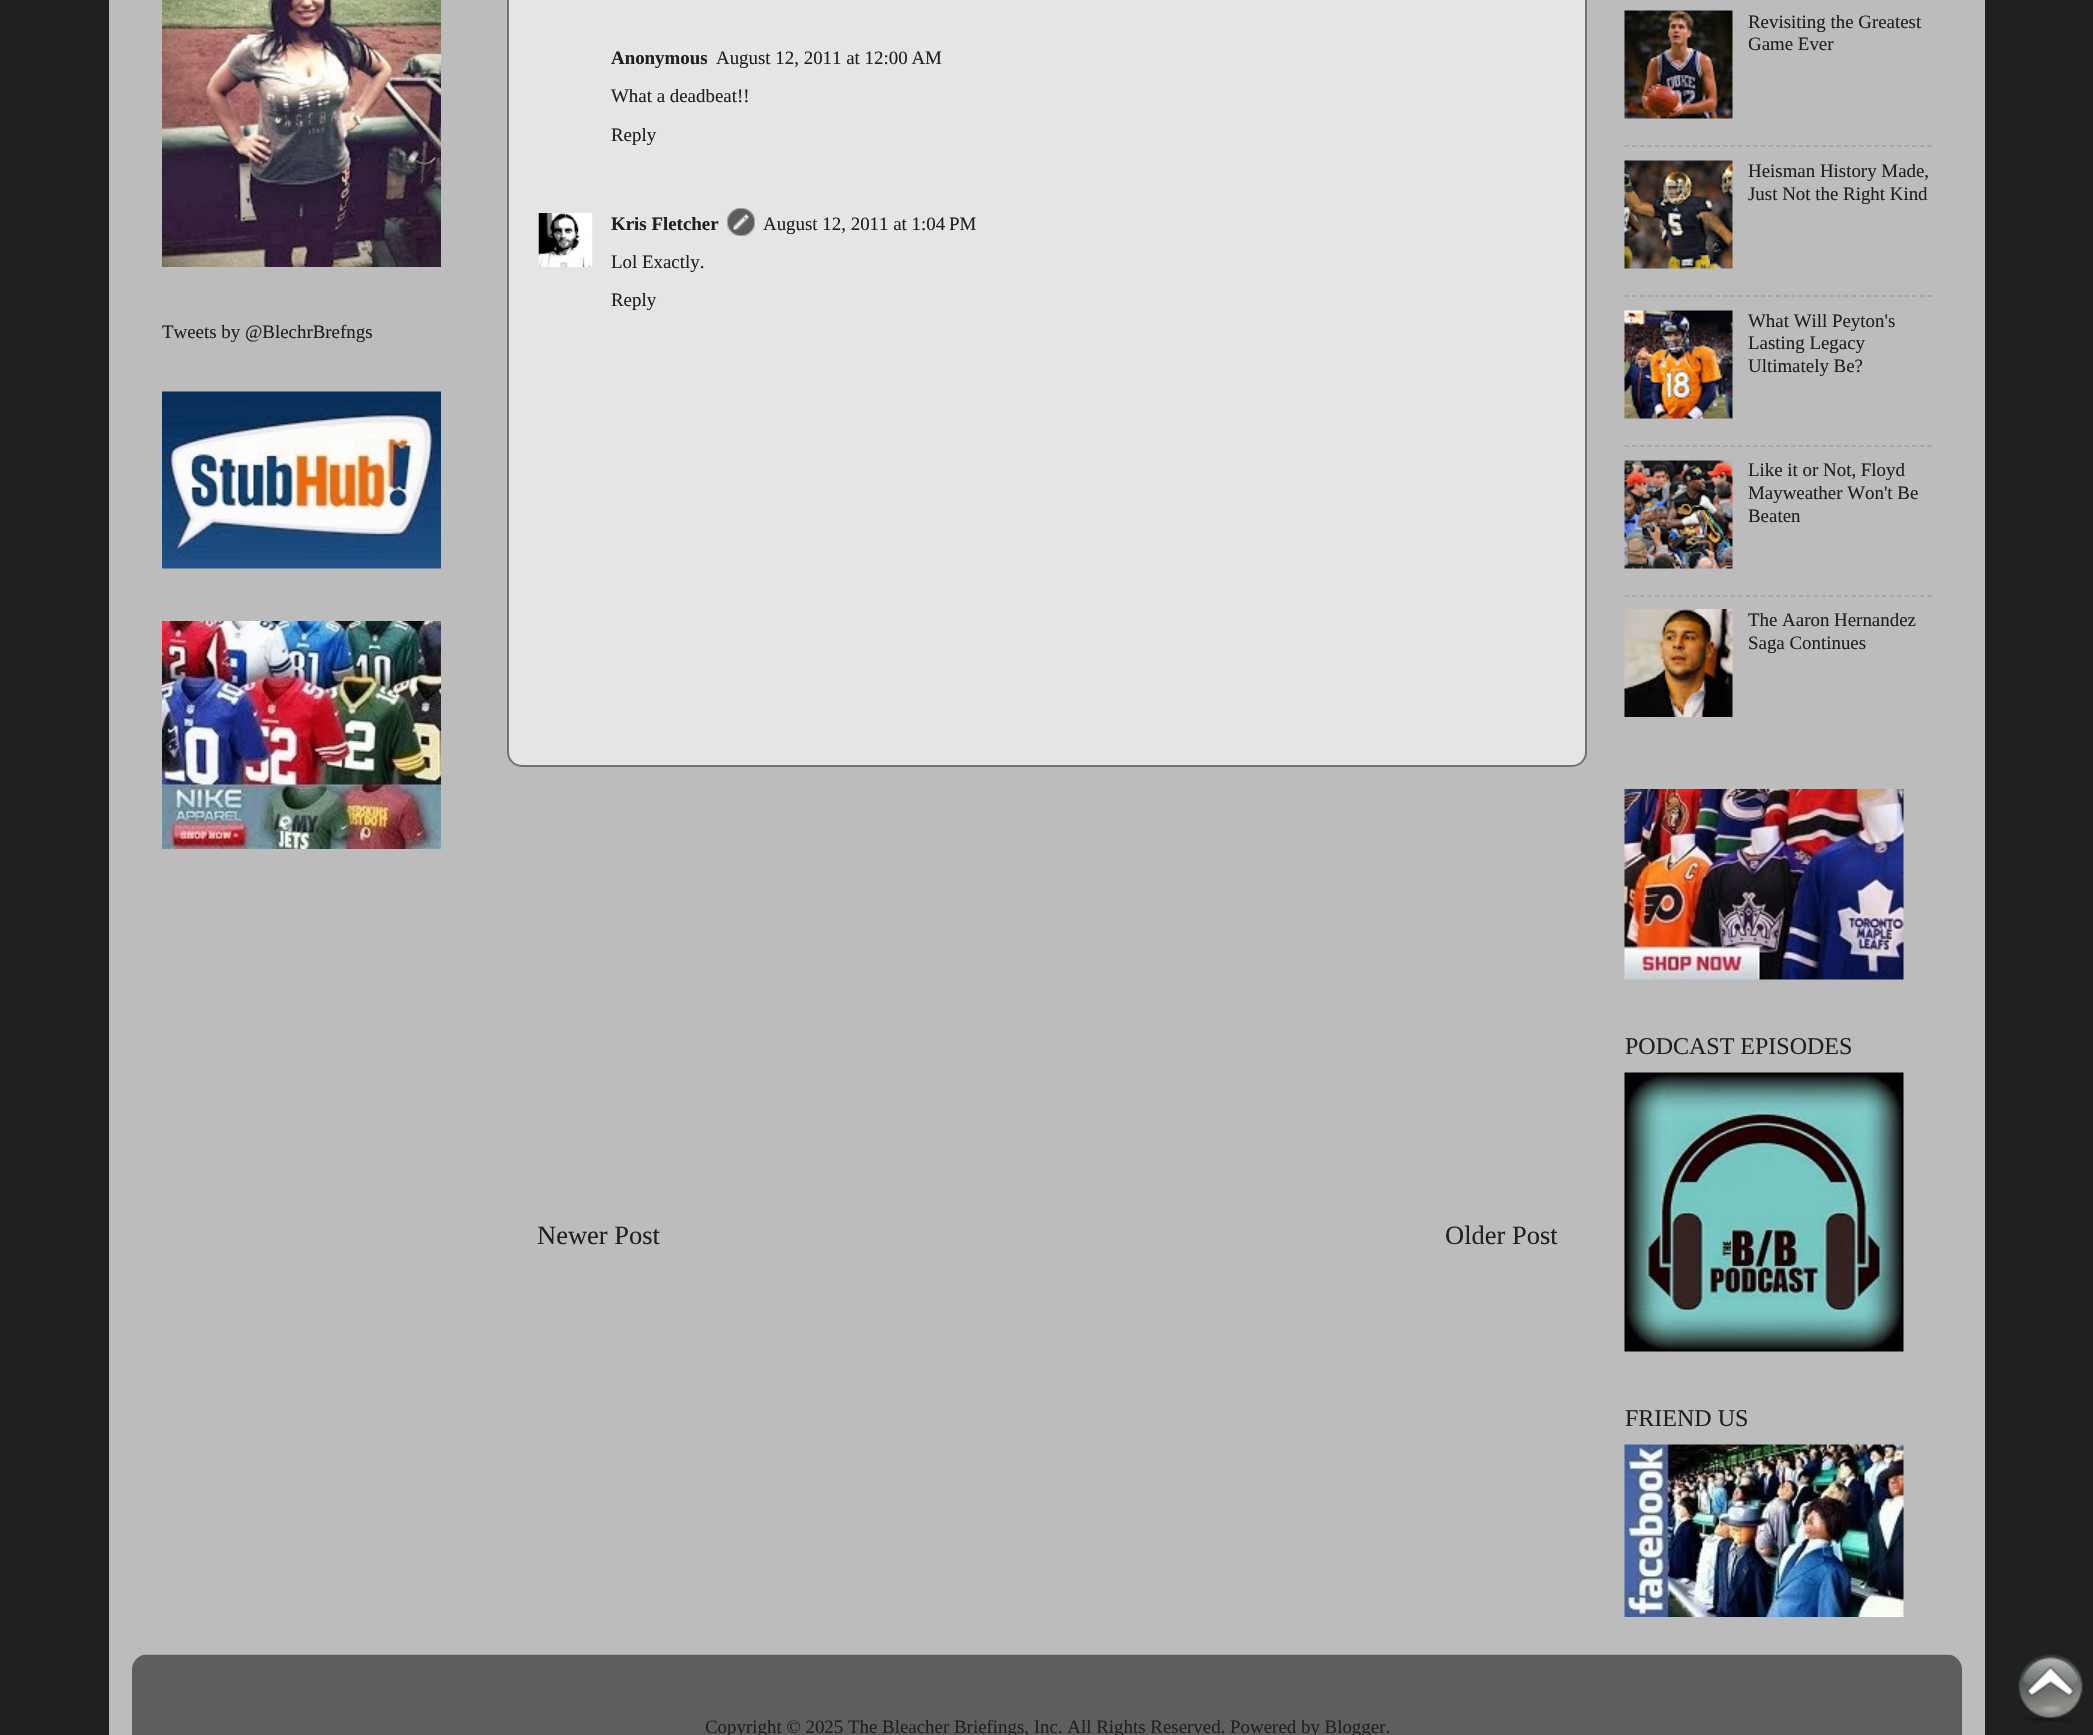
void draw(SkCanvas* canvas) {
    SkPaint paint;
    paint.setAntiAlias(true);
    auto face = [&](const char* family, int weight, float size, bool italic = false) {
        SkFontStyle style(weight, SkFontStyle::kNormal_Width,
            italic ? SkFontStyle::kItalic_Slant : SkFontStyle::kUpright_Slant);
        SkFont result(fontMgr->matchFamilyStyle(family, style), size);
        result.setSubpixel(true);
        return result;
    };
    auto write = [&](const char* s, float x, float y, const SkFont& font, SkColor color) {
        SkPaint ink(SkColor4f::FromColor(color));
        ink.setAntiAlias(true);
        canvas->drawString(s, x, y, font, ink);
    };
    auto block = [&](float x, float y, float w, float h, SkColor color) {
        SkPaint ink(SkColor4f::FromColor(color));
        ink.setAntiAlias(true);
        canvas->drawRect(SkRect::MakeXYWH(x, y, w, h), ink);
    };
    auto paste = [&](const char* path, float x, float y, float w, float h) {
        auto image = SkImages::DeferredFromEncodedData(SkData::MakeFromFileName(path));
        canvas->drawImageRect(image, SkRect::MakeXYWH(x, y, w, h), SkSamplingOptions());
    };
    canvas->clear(SkColorSetRGB(32, 32, 32));
    block(109, 0, 1876, 1735, SkColorSetRGB(188, 188, 188));
    paste("pic1.png", 162, 0, 279, 267);
    auto kFont1 = face("Liberation Serif", 400, 18.9f);
    write("Tweets by @BlechrBrefngs", 162, 338, kFont1, SkColorSetRGB(32, 32, 32));
    paste("pic2.png", 162, 391, 279, 178);
    paste("pic3.png", 162, 621, 279, 228);
    paint.setColor(SkColorSetRGB(229, 229, 229));
    canvas->drawRoundRect(SkRect::MakeXYWH(508, -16, 1078, 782), 14, 14, paint);
    paint.setStyle(SkPaint::kStroke_Style);
    paint.setStrokeWidth(2);
    paint.setColor(SkColorSetRGB(114, 114, 114));
    canvas->drawRoundRect(SkRect::MakeXYWH(508, -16, 1078, 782), 14, 14, paint);
    auto kFont2 = face("Liberation Serif", 700, 18.9f);
    write("Anonymous", 611, 64, kFont2, SkColorSetRGB(32, 32, 32));
    write("August 12, 2011 at 12:00 AM", 716, 64, kFont1, SkColorSetRGB(32, 32, 32));
    write("What a deadbeat!!", 611, 102, kFont1, SkColorSetRGB(32, 32, 32));
    write("Reply", 611, 141, kFont1, SkColorSetRGB(32, 32, 32));
    paste("pic4.png", 538, 213, 55, 54);
    write("Kris Fletcher", 611, 230, kFont2, SkColorSetRGB(32, 32, 32));
    paste("pic5.png", 727, 208, 28, 28);
    write("August 12, 2011 at 1:04 PM", 763, 230, kFont1, SkColorSetRGB(32, 32, 32));
    write("Lol Exactly.", 611, 268, kFont1, SkColorSetRGB(32, 32, 32));
    write("Reply", 611, 306, kFont1, SkColorSetRGB(32, 32, 32));
    auto kFont3 = face("Liberation Serif", 400, 26.5f);
    write("Newer Post", 537, 1244, kFont3, SkColorSetRGB(32, 32, 32));
    write("Older Post", 1445, 1244, kFont3, SkColorSetRGB(32, 32, 32));
    paste("pic6.png", 1624, 10, 109, 109);
    write("Revisiting the Greatest", 1748, 28, kFont1, SkColorSetRGB(32, 32, 32));
    write("Game Ever", 1748, 50, kFont1, SkColorSetRGB(32, 32, 32));
    paint.setStrokeWidth(1.5f);
    paint.setColor(SkColorSetRGB(158, 158, 158));
    paint.setPathEffect(SkDashPathEffect::Make({{4.5f, 3.07f}}, 0));
    canvas->drawPath(SkPathBuilder().moveTo(1624.5f, 146).lineTo(1932, 146).detach(), paint);
    paint.setPathEffect(nullptr);
    paste("pic7.png", 1624, 160, 109, 109);
    write("Heisman History Made,", 1748, 177, kFont1, SkColorSetRGB(32, 32, 32));
    write("Just Not the Right Kind", 1748, 200, kFont1, SkColorSetRGB(32, 32, 32));
    paint.setPathEffect(SkDashPathEffect::Make({{4.5f, 3.07f}}, 0));
    canvas->drawPath(SkPathBuilder().moveTo(1624.5f, 296).lineTo(1932, 296).detach(), paint);
    paint.setPathEffect(nullptr);
    paste("pic8.png", 1624, 310, 109, 109);
    write("What Will Peyton's", 1748, 327, kFont1, SkColorSetRGB(32, 32, 32));
    write("Lasting Legacy", 1748, 349, kFont1, SkColorSetRGB(32, 32, 32));
    write("Ultimately Be?", 1748, 372, kFont1, SkColorSetRGB(32, 32, 32));
    paint.setPathEffect(SkDashPathEffect::Make({{4.5f, 3.07f}}, 0));
    canvas->drawPath(SkPathBuilder().moveTo(1624.5f, 446).lineTo(1932, 446).detach(), paint);
    paint.setPathEffect(nullptr);
    paste("pic9.png", 1624, 460, 109, 109);
    write("Like it or Not, Floyd", 1748, 476, kFont1, SkColorSetRGB(32, 32, 32));
    write("Mayweather Won't Be", 1748, 499, kFont1, SkColorSetRGB(32, 32, 32));
    write("Beaten", 1748, 522, kFont1, SkColorSetRGB(32, 32, 32));
    paint.setPathEffect(SkDashPathEffect::Make({{4.5f, 3.07f}}, 0));
    canvas->drawPath(SkPathBuilder().moveTo(1624.5f, 596).lineTo(1932, 596).detach(), paint);
    paint.setPathEffect(nullptr);
    paste("pic10.png", 1624, 609, 109, 108);
    write("The Aaron Hernandez", 1748, 626, kFont1, SkColorSetRGB(32, 32, 32));
    write("Saga Continues", 1748, 649, kFont1, SkColorSetRGB(32, 32, 32));
    paste("pic11.png", 1624, 789, 280, 191);
    auto kFont4 = face("Liberation Serif", 400, 24);
    write("PODCAST EPISODES", 1625, 1054, kFont4, SkColorSetRGB(32, 32, 32));
    paste("pic12.png", 1624, 1072, 280, 280);
    write("FRIEND US", 1625, 1426, kFont4, SkColorSetRGB(32, 32, 32));
    paste("pic13.png", 1624, 1444, 280, 173);
    paste("pic14.png", 132, 1654, 1830, 81);
    write("Copyright © 2025 The Bleacher Briefings, Inc. All Rights Reserved. Powered by Blogger.", 705, 1733, kFont1, SkColorSetRGB(32, 32, 32));
    paste("pic15.png", 2018, 1654, 65, 68);
}
